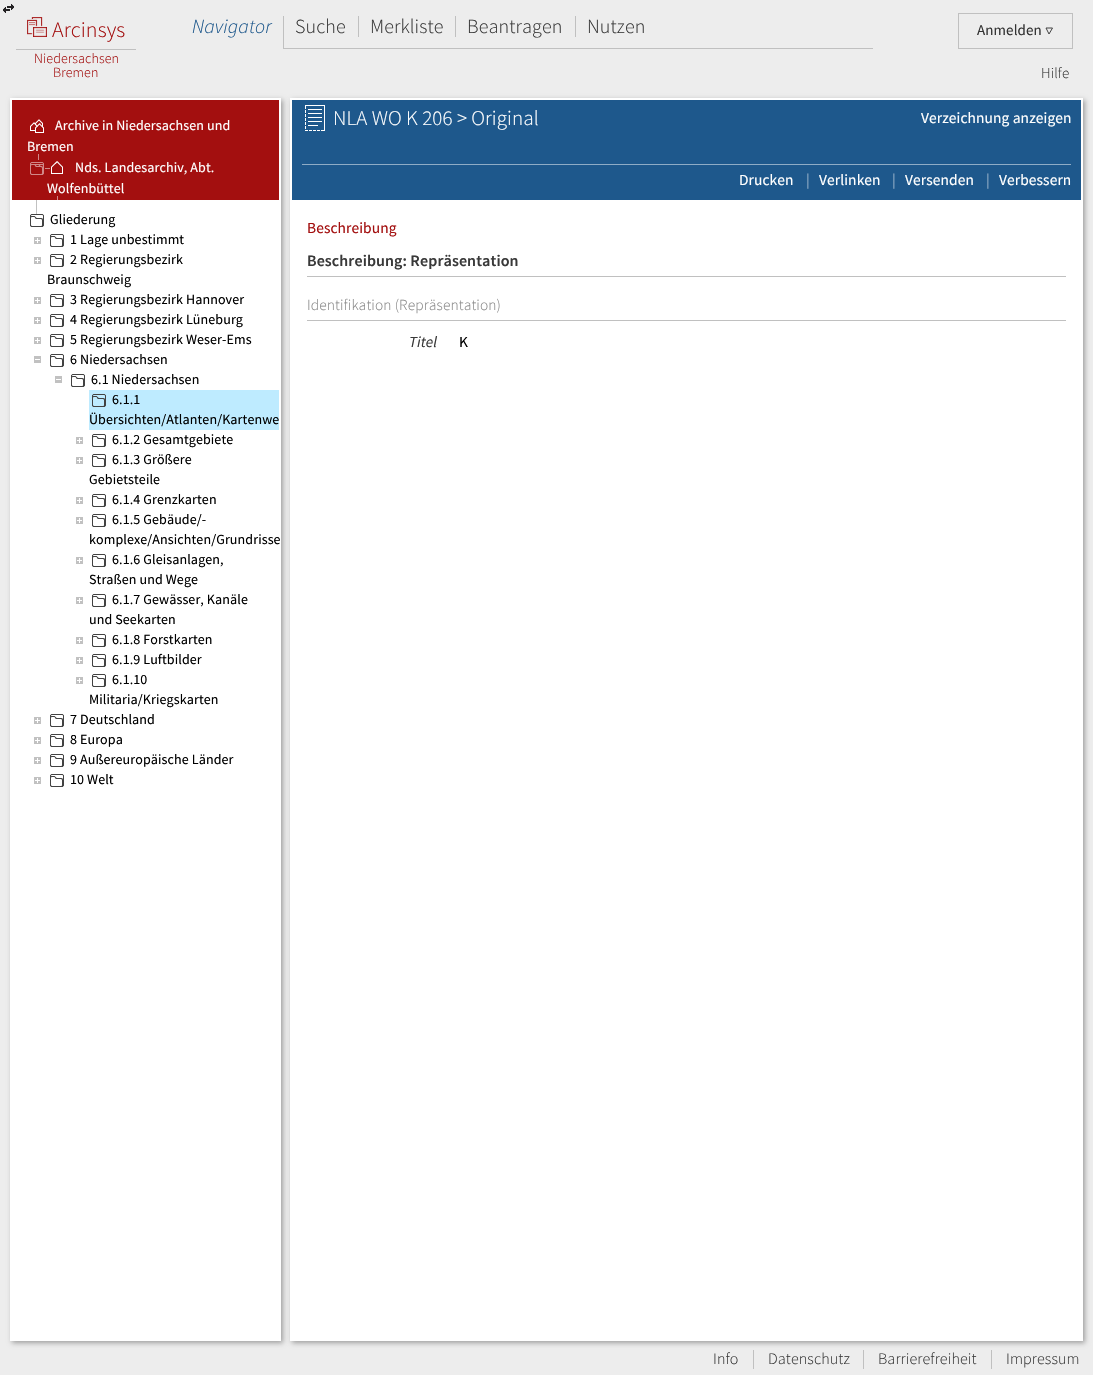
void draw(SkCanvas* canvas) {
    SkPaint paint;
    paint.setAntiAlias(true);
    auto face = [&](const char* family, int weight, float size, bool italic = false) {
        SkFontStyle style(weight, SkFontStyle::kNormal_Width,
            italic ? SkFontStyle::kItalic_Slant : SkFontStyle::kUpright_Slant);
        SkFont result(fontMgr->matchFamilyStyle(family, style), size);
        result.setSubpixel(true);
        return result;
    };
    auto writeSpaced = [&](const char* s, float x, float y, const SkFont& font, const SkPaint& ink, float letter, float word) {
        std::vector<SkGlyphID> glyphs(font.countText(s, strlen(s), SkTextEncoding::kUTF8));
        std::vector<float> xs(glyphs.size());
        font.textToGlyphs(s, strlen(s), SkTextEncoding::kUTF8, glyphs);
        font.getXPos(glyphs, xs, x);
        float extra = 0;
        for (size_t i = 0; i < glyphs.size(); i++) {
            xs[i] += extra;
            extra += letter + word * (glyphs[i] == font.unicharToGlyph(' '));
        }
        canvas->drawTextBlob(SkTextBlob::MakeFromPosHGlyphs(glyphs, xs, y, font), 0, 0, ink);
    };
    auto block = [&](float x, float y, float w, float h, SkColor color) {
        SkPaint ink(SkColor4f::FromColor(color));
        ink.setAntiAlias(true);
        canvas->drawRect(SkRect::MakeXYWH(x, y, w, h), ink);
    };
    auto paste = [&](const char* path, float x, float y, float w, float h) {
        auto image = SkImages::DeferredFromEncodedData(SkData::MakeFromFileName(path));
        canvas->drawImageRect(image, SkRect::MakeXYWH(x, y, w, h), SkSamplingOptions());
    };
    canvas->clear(SkColorSetRGB(237, 237, 237));
    paste("pic1.png", 3, 4, 11, 9);
    paste("pic2.png", 27, 17, 20, 20);
    auto kFont1 = face("Source Sans Pro", 300, 22);
    paint.setColor(SkColorSetRGB(163, 15, 15));
    writeSpaced("Arcinsys", 52, 37, kFont1, paint, 0.1f, 0);
    block(16, 49, 120, 1, SkColorSetRGB(192, 192, 192));
    auto kFont2 = face("Source Sans Pro", 300, 14);
    writeSpaced("Niedersachsen", 34, 63, kFont2, paint, 0.1f, 0);
    writeSpaced("Bremen", 53, 77, kFont2, paint, 0.1f, 0);
    block(283, 48, 590, 1, SkColorSetRGB(192, 192, 192));
    auto kFont3 = face("Source Sans Pro", 300, 20, true);
    paint.setColor(SkColorSetRGB(30, 88, 140));
    writeSpaced("Navigator", 192, 33, kFont3, paint, 0.1f, 0);
    block(283, 16, 1, 32, SkColorSetRGB(192, 192, 192));
    auto kFont4 = face("Source Sans Pro", 300, 20);
    paint.setColor(SkColorSetRGB(57, 57, 57));
    writeSpaced("Suche", 295, 33, kFont4, paint, 0.1f, 0);
    block(358, 16, 1, 21, SkColorSetRGB(192, 192, 192));
    writeSpaced("Merkliste", 370, 33, kFont4, paint, 0.1f, 0);
    block(455, 16, 1, 21, SkColorSetRGB(192, 192, 192));
    writeSpaced("Beantragen", 467, 33, kFont4, paint, 0.1f, 0);
    block(575, 16, 1, 21, SkColorSetRGB(192, 192, 192));
    writeSpaced("Nutzen", 587, 33, kFont4, paint, 0.1f, 0);
    paint.setStyle(SkPaint::kStroke_Style);
    paint.setStrokeWidth(1);
    paint.setColor(SkColorSetRGB(192, 192, 192));
    canvas->drawRect(SkRect::MakeXYWH(958.5f, 13.5f, 114, 35), paint);
    auto kFont5 = face("Source Sans Pro", 400, 15);
    paint.setStyle(SkPaint::kFill_Style);
    paint.setColor(SkColorSetRGB(51, 51, 51));
    writeSpaced("Anmelden", 977, 35, kFont5, paint, 0.1f, 0);
    paint.setStyle(SkPaint::kStroke_Style);
    paint.setColor(SkColorSetRGB(66, 66, 66));
    canvas->drawPath(SkPathBuilder().moveTo(1046, 28).lineTo(1052.5f, 28).lineTo(1049, 34).close().detach(), paint);
    auto kFont6 = face("Source Sans Pro", 300, 15);
    paint.setStyle(SkPaint::kFill_Style);
    paint.setColor(SkColorSetRGB(57, 57, 57));
    writeSpaced("Hilfe", 1041, 78, kFont6, paint, 0.1f, 0);
    paint.setColor(SkColorSetARGB(84, 0, 0, 0));
    paint.setMaskFilter(SkMaskFilter::MakeBlur(kNormal_SkBlurStyle, 2.5f));
    canvas->drawRect(SkRect::MakeXYWH(12, 100, 271, 1243), paint);
    paint.setMaskFilter(nullptr);
    block(10, 98, 271, 1243, SK_ColorWHITE);
    block(12, 100, 267, 100, SkColorSetRGB(163, 15, 15));
    paste("pic3.png", 30, 119, 14, 14);
    auto kFont7 = face("Source Sans Pro", 400, 14);
    paint.setColor(SK_ColorWHITE);
    writeSpaced("Archive in Niedersachsen und", 55, 130, kFont7, paint, 0.1f, 0);
    writeSpaced("Bremen", 27, 151, kFont7, paint, 0.1f, 0);
    paste("pic4.png", 30, 154, 20, 21);
    paste("pic5.png", 51, 161, 12, 13);
    writeSpaced("Nds. Landesarchiv, Abt.", 75, 172, kFont7, paint, 0.1f, 0);
    writeSpaced("Wolfenbüttel", 47, 193, kFont7, paint, 0.1f, 0);
    paste("pic6.png", 57, 196, 1, 4);
    block(36, 200, 1, 14, SkColorSetRGB(193, 193, 193));
    paste("pic7.png", 30, 214, 14, 13);
    paint.setColor(SK_ColorBLACK);
    writeSpaced("Gliederung", 50, 224, kFont7, paint, 0.1f, 0);
    paste("pic8.png", 34, 237, 7, 7);
    paste("pic7.png", 50, 234, 14, 13);
    writeSpaced("1 Lage unbestimmt", 70, 244, kFont7, paint, 0.1f, 0);
    paste("pic8.png", 34, 257, 7, 7);
    paste("pic7.png", 50, 254, 14, 13);
    writeSpaced("2 Regierungsbezirk", 70, 264, kFont7, paint, 0.1f, 0);
    writeSpaced("Braunschweig", 47, 284, kFont7, paint, 0.1f, 0);
    paste("pic8.png", 34, 297, 7, 7);
    paste("pic7.png", 50, 294, 14, 13);
    writeSpaced("3 Regierungsbezirk Hannover", 70, 304, kFont7, paint, 0.1f, 0);
    paste("pic8.png", 34, 317, 7, 7);
    paste("pic7.png", 50, 314, 14, 13);
    writeSpaced("4 Regierungsbezirk Lüneburg", 70, 324, kFont7, paint, 0.1f, 0);
    paste("pic8.png", 34, 337, 7, 7);
    paste("pic7.png", 50, 334, 14, 13);
    writeSpaced("5 Regierungsbezirk Weser-Ems", 70, 344, kFont7, paint, 0.1f, 0);
    paste("pic9.png", 34, 356, 7, 7);
    paste("pic7.png", 50, 354, 14, 13);
    writeSpaced("6 Niedersachsen", 70, 364, kFont7, paint, 0.1f, 0);
    paste("pic9.png", 55, 376, 7, 7);
    paste("pic7.png", 71, 374, 14, 13);
    writeSpaced("6.1 Niedersachsen", 91, 384, kFont7, paint, 0.1f, 0);
    block(89, 390, 190, 40, SkColorSetRGB(190, 235, 255));
    paste("pic10.png", 92, 394, 14, 13);
    writeSpaced("6.1.1", 112, 404, kFont7, paint, 0.1f, 0);
    writeSpaced("Übersichten/Atlanten/Kartenwe", 89, 424, kFont7, paint, 0.1f, 0);
    paste("pic8.png", 76, 437, 7, 7);
    paste("pic7.png", 92, 434, 14, 13);
    writeSpaced("6.1.2 Gesamtgebiete", 112, 444, kFont7, paint, 0.1f, 0);
    paste("pic8.png", 76, 457, 7, 7);
    paste("pic7.png", 92, 454, 14, 13);
    writeSpaced("6.1.3 Größere", 112, 464, kFont7, paint, 0.1f, 0);
    writeSpaced("Gebietsteile", 89, 484, kFont7, paint, 0.1f, 0);
    paste("pic8.png", 76, 497, 7, 7);
    paste("pic7.png", 92, 494, 14, 13);
    writeSpaced("6.1.4 Grenzkarten", 112, 504, kFont7, paint, 0.1f, 0);
    paste("pic8.png", 76, 517, 7, 7);
    paste("pic7.png", 92, 514, 14, 13);
    writeSpaced("6.1.5 Gebäude/-", 112, 524, kFont7, paint, 0.1f, 0);
    writeSpaced("komplexe/Ansichten/Grundrisse", 89, 544, kFont7, paint, 0.1f, 0);
    paste("pic8.png", 76, 557, 7, 7);
    paste("pic7.png", 92, 554, 14, 13);
    writeSpaced("6.1.6 Gleisanlagen,", 112, 564, kFont7, paint, 0.1f, 0);
    writeSpaced("Straßen und Wege", 89, 584, kFont7, paint, 0.1f, 0);
    paste("pic8.png", 76, 597, 7, 7);
    paste("pic7.png", 92, 594, 14, 13);
    writeSpaced("6.1.7 Gewässer, Kanäle", 112, 604, kFont7, paint, 0.1f, 0);
    writeSpaced("und Seekarten", 89, 624, kFont7, paint, 0.1f, 0);
    paste("pic8.png", 76, 637, 7, 7);
    paste("pic7.png", 92, 634, 14, 13);
    writeSpaced("6.1.8 Forstkarten", 112, 644, kFont7, paint, 0.1f, 0);
    paste("pic8.png", 76, 657, 7, 7);
    paste("pic7.png", 92, 654, 14, 13);
    writeSpaced("6.1.9 Luftbilder", 112, 664, kFont7, paint, 0.1f, 0);
    paste("pic8.png", 76, 677, 7, 7);
    paste("pic7.png", 92, 674, 14, 13);
    writeSpaced("6.1.10", 112, 684, kFont7, paint, 0.1f, 0);
    writeSpaced("Militaria/Kriegskarten", 89, 704, kFont7, paint, 0.1f, 0);
    paste("pic8.png", 34, 717, 7, 7);
    paste("pic7.png", 50, 714, 14, 13);
    writeSpaced("7 Deutschland", 70, 724, kFont7, paint, 0.1f, 0);
    paste("pic8.png", 34, 737, 7, 7);
    paste("pic7.png", 50, 734, 14, 13);
    writeSpaced("8 Europa", 70, 744, kFont7, paint, 0.1f, 0);
    paste("pic8.png", 34, 757, 7, 7);
    paste("pic7.png", 50, 754, 14, 13);
    writeSpaced("9 Außereuropäische Länder", 70, 764, kFont7, paint, 0.1f, 0);
    paste("pic8.png", 34, 777, 7, 7);
    paste("pic7.png", 50, 774, 14, 13);
    writeSpaced("10 Welt", 70, 784, kFont7, paint, 0.1f, 0);
    paint.setColor(SkColorSetARGB(84, 0, 0, 0));
    paint.setMaskFilter(SkMaskFilter::MakeBlur(kNormal_SkBlurStyle, 2.5f));
    canvas->drawRect(SkRect::MakeXYWH(292, 100, 793, 1243), paint);
    paint.setMaskFilter(nullptr);
    block(290, 98, 793, 1243, SK_ColorWHITE);
    block(292, 100, 789, 100, SkColorSetRGB(30, 88, 140));
    paste("pic11.png", 305, 105, 20, 26);
    auto kFont8 = face("Source Sans Pro", 300, 21);
    paint.setColor(SK_ColorWHITE);
    writeSpaced("NLA WO K 206 > Original", 333, 125, kFont8, paint, 0.1f, 0);
    auto kFont9 = face("Source Sans Pro", 400, 15.4f);
    writeSpaced("Verzeichnung anzeigen", 921, 123, kFont9, paint, 0.1f, 0);
    block(302, 164, 769, 1, SkColorSetRGB(143, 172, 198));
    writeSpaced("Drucken", 739, 185, kFont9, paint, 0.1f, 0);
    paint.setColor(SkColorSetRGB(143, 172, 198));
    writeSpaced("|", 806, 185, kFont9, paint, 0.1f, 0);
    paint.setColor(SK_ColorWHITE);
    writeSpaced("Verlinken", 819, 185, kFont9, paint, 0.1f, 0);
    paint.setColor(SkColorSetRGB(143, 172, 198));
    writeSpaced("|", 892, 185, kFont9, paint, 0.1f, 0);
    paint.setColor(SK_ColorWHITE);
    writeSpaced("Versenden", 905, 185, kFont9, paint, 0.1f, 0);
    paint.setColor(SkColorSetRGB(143, 172, 198));
    writeSpaced("|", 986, 185, kFont9, paint, 0.1f, 0);
    paint.setColor(SK_ColorWHITE);
    writeSpaced("Verbessern", 999, 185, kFont9, paint, 0.1f, 0);
    paint.setColor(SkColorSetRGB(163, 15, 15));
    writeSpaced("Beschreibung", 307, 233, kFont9, paint, 0.1f, 0);
    block(307, 276, 759, 1, SkColorSetRGB(192, 192, 192));
    auto kFont10 = face("Source Sans Pro", 600, 16);
    paint.setColor(SkColorSetRGB(57, 57, 57));
    writeSpaced("Beschreibung: Repräsentation", 307, 266, kFont10, paint, 0.1f, 0);
    block(307, 320, 759, 1, SkColorSetRGB(192, 192, 192));
    auto kFont11 = face("Source Sans Pro", 300, 15.4f);
    paint.setColor(SkColorSetRGB(136, 136, 136));
    writeSpaced("Identifikation (Repräsentation)", 307, 310, kFont11, paint, 0.1f, 0);
    auto kFont12 = face("Source Sans Pro", 400, 15.4f, true);
    paint.setColor(SkColorSetRGB(57, 57, 57));
    writeSpaced("Titel", 409, 347, kFont12, paint, 0.1f, 0);
    paint.setColor(SK_ColorBLACK);
    writeSpaced("K", 459, 347, kFont9, paint, 0.1f, 0);
    auto kFont13 = face("Source Sans Pro", 300, 16);
    paint.setColor(SkColorSetRGB(57, 57, 57));
    writeSpaced("Info", 713, 1364, kFont13, paint, 0.1f, 0);
    block(753, 1350, 1, 19, SkColorSetRGB(192, 192, 192));
    writeSpaced("Datenschutz", 768, 1364, kFont13, paint, 0.1f, 0);
    block(863, 1350, 1, 19, SkColorSetRGB(192, 192, 192));
    writeSpaced("Barrierefreiheit", 878, 1364, kFont13, paint, 0.1f, 0);
    block(991, 1350, 1, 19, SkColorSetRGB(192, 192, 192));
    writeSpaced("Impressum", 1006, 1364, kFont13, paint, 0.1f, 0);
}
